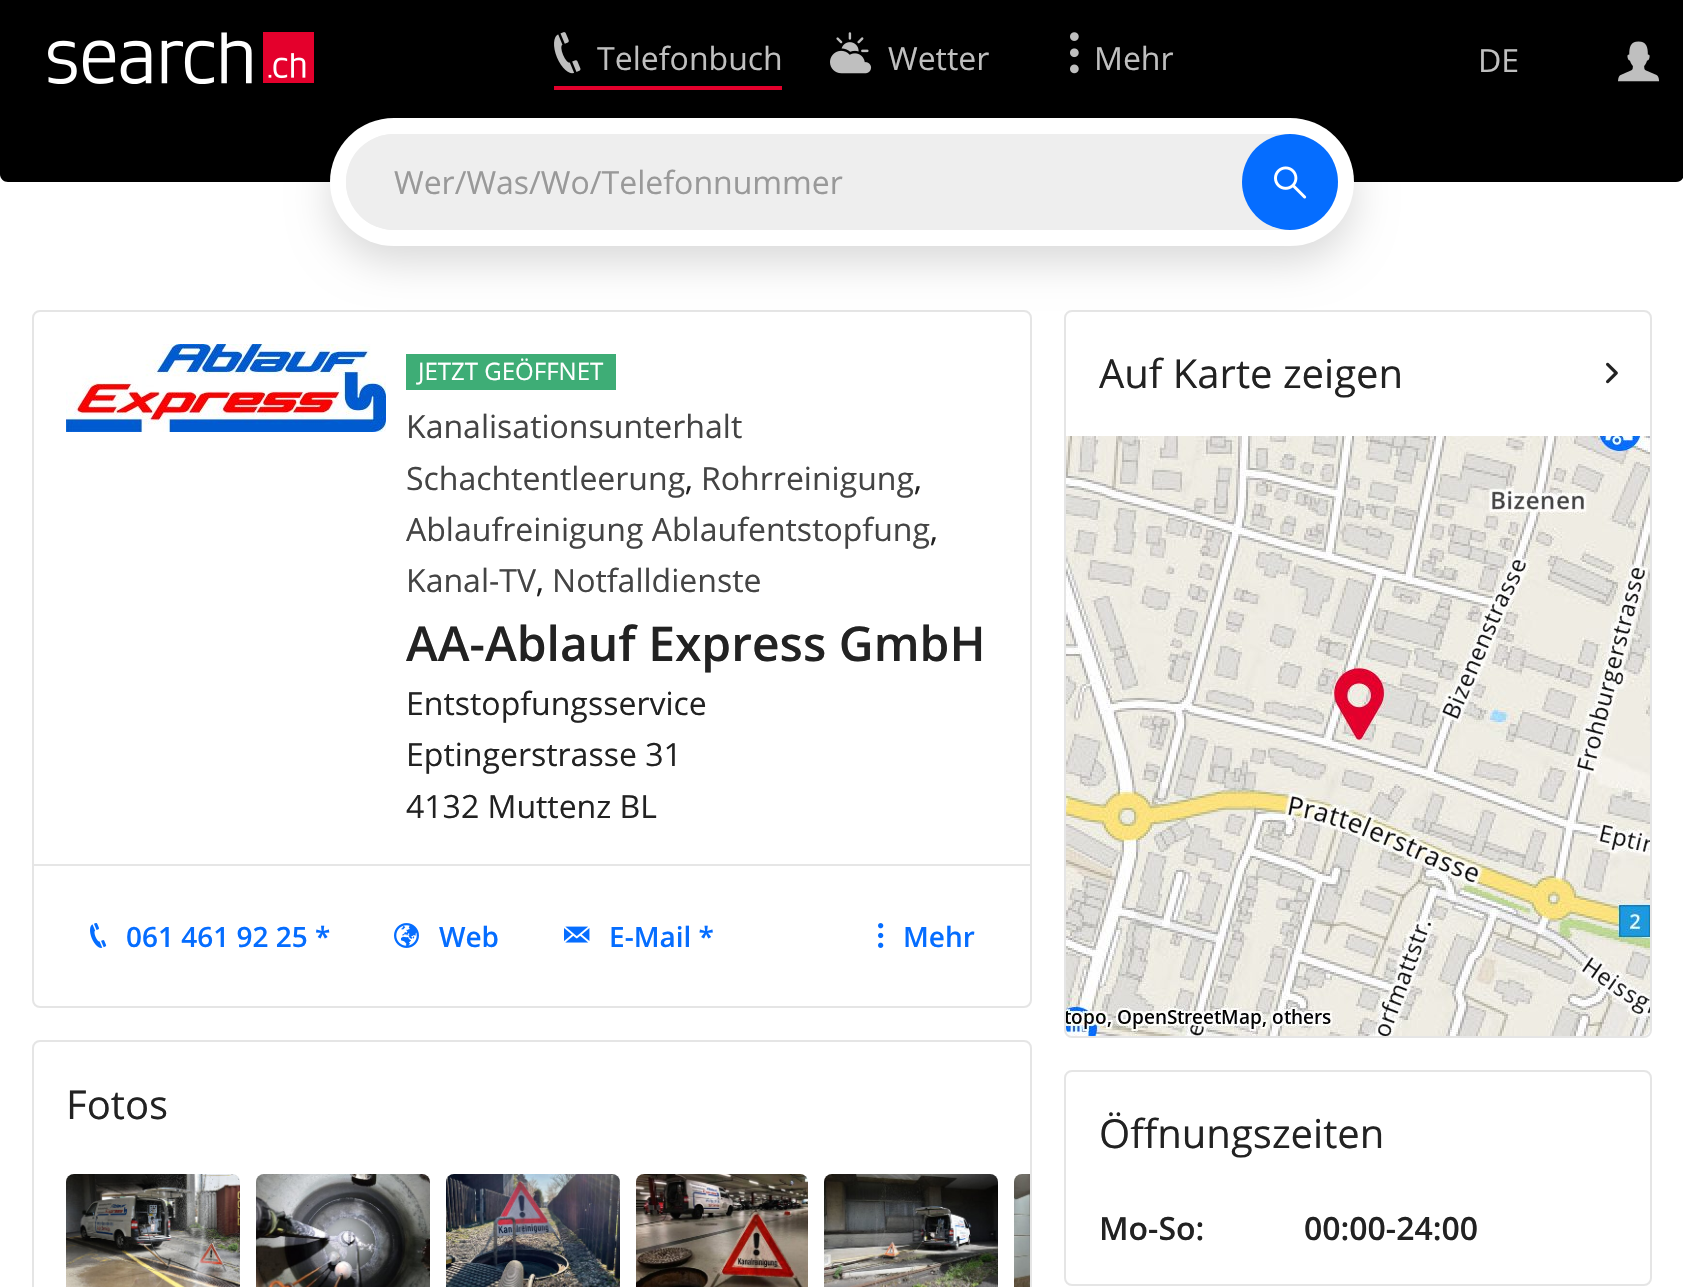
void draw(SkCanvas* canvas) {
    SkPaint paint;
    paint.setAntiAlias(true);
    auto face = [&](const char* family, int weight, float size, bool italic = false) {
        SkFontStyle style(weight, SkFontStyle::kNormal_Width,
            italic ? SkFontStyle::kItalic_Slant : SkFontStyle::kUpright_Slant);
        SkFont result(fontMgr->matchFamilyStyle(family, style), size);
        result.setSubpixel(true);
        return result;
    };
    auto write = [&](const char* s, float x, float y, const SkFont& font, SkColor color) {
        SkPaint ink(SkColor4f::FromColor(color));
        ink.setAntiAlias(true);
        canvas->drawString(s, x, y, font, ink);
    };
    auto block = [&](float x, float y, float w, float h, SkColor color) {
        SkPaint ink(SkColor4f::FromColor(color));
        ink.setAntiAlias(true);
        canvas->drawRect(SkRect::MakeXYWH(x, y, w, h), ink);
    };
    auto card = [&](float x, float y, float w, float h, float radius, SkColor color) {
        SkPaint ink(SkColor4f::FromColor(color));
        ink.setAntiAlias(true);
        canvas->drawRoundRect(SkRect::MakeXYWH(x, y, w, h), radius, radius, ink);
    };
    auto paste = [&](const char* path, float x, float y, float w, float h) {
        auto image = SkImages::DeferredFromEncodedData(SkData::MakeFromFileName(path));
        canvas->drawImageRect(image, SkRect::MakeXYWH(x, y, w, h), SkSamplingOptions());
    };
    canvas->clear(SK_ColorWHITE);
    block(0, 0, 1683, 118, SK_ColorBLACK);
    paste("pic1.png", 48, 32, 266, 52);
    block(554, 86, 228, 4, SkColorSetRGB(228, 0, 44));
    paste("pic2.png", 554, 32, 27, 42);
    auto kFont1 = face("Open Sans", 400, 32);
    write("Telefonbuch", 597, 70, kFont1, SkColorSetRGB(191, 191, 191));
    paste("pic3.png", 830, 32, 42, 42);
    write("Wetter", 888, 70, kFont1, SkColorSetRGB(191, 191, 191));
    paste("pic4.png", 1070, 32, 9, 42);
    write("Mehr", 1094, 70, kFont1, SkColorSetRGB(191, 191, 191));
    write("DE", 1478, 72, kFont1, SkColorSetRGB(191, 191, 191));
    paste("pic5.png", 1618, 41, 42, 41);
    paint.setColor(SK_ColorBLACK);
    canvas->drawPath(SkPathBuilder().moveTo(0, 118).lineTo(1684, 118).lineTo(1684, 174).cubicTo(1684, 178.5f, 1680.5f, 182, 1676, 182).lineTo(8, 182).cubicTo(3.5f, 182, 0, 178.5f, 0, 174).close().detach(), paint);
    paint.setStyle(SkPaint::kStroke_Style);
    paint.setStrokeWidth(2);
    paint.setColor(SkColorSetRGB(229, 229, 229));
    canvas->drawRoundRect(SkRect::MakeXYWH(33, 311, 998, 696), 7, 7, paint);
    canvas->drawRoundRect(SkRect::MakeXYWH(1065, 311, 586, 726), 7, 7, paint);
    paint.setStyle(SkPaint::kFill_Style);
    paint.setColor(SkColorSetARGB(38, 0, 0, 0));
    paint.setMaskFilter(SkMaskFilter::MakeBlur(kNormal_SkBlurStyle, 20));
    canvas->drawRoundRect(SkRect::MakeXYWH(330, 134, 1024, 128), 64, 64, paint);
    paint.setMaskFilter(nullptr);
    card(330, 118, 1024, 128, 64, SK_ColorWHITE);
    card(346, 134, 992, 96, 48, SkColorSetRGB(238, 238, 238));
    card(346, 134, 896, 96, 48, SkColorSetRGB(238, 238, 238));
    write("Wer/Was/Wo/Telefonnummer", 394, 194, kFont1, SkColorSetRGB(153, 153, 153));
    paint.setColor(SkColorSetRGB(5, 109, 255));
    canvas->drawCircle(1290, 182, 48, paint);
    paste("pic6.png", 1274, 166, 33, 33);
    paste("pic7.png", 66, 344, 320, 88);
    block(406, 354, 210, 36, SkColorSetRGB(62, 173, 118));
    auto kFont2 = face("Open Sans", 400, 24);
    write("JETZT GEÖFFNET", 418, 380, kFont2, SK_ColorWHITE);
    write("Kanalisationsunterhalt", 406, 438, kFont1, SkColorSetRGB(68, 68, 68));
    write("Schachtentleerung", 406, 490, kFont1, SkColorSetRGB(68, 68, 68));
    write(",", 685, 490, kFont1, SkColorSetRGB(34, 34, 34));
    write("Rohrreinigung", 701, 490, kFont1, SkColorSetRGB(68, 68, 68));
    write(",", 914, 490, kFont1, SkColorSetRGB(34, 34, 34));
    write("Ablaufreinigung Ablaufentstopfung", 406, 541, kFont1, SkColorSetRGB(68, 68, 68));
    write(",", 930, 541, kFont1, SkColorSetRGB(34, 34, 34));
    write("Kanal-TV", 406, 592, kFont1, SkColorSetRGB(68, 68, 68));
    write(",", 536, 592, kFont1, SkColorSetRGB(34, 34, 34));
    write("Notfalldienste", 552, 592, kFont1, SkColorSetRGB(68, 68, 68));
    auto kFont3 = face("Open Sans", 600, 48);
    write("AA-Ablauf Express GmbH", 406, 661, kFont3, SkColorSetRGB(34, 34, 34));
    write("Entstopfungsservice", 406, 715, kFont1, SkColorSetRGB(34, 34, 34));
    write("Eptingerstrasse 31", 406, 766, kFont1, SkColorSetRGB(34, 34, 34));
    write("4132 Muttenz BL", 406, 818, kFont1, SkColorSetRGB(34, 34, 34));
    block(34, 864, 996, 2, SkColorSetRGB(230, 230, 230));
    paste("pic8.png", 90, 923, 17, 25);
    auto kFont4 = face("Open Sans", 600, 28);
    write("061 461 92 25 *", 126, 947, kFont4, SkColorSetRGB(5, 109, 255));
    paste("pic9.png", 394, 923, 25, 25);
    write("Web", 439, 947, kFont4, SkColorSetRGB(5, 109, 255));
    paste("pic10.png", 564, 926, 26, 17);
    write("E-Mail *", 609, 947, kFont4, SkColorSetRGB(5, 109, 255));
    paste("pic11.png", 878, 923, 6, 25);
    write("Mehr", 903, 947, kFont4, SkColorSetRGB(5, 109, 255));
    paint.setStyle(SkPaint::kStroke_Style);
    paint.setColor(SkColorSetRGB(229, 229, 229));
    canvas->drawRoundRect(SkRect::MakeXYWH(33, 1041, 998, 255), 7, 7, paint);
    auto kFont5 = face("Open Sans", 400, 40);
    write("Fotos", 66, 1119, kFont5, SkColorSetRGB(34, 34, 34));
    paste("pic12.png", 66, 1174, 174, 113);
    paste("pic13.png", 256, 1174, 174, 113);
    paste("pic14.png", 446, 1174, 174, 113);
    paste("pic15.png", 636, 1174, 172, 113);
    paste("pic16.png", 824, 1174, 174, 113);
    paste("pic17.png", 1014, 1174, 16, 113);
    write("Auf Karte zeigen", 1099, 388, kFont5, SkColorSetRGB(34, 34, 34));
    paste("pic18.png", 1606, 362, 12, 22);
    paste("pic19.png", 1066, 436, 584, 600);
    canvas->drawRoundRect(SkRect::MakeXYWH(1065, 1071, 586, 214), 7, 7, paint);
    write("Öffnungszeiten", 1099, 1148, kFont5, SkColorSetRGB(34, 34, 34));
    auto kFont6 = face("Open Sans", 600, 32);
    write("Mo-So:", 1099, 1240, kFont6, SkColorSetRGB(34, 34, 34));
    write("00:00-24:00", 1304, 1240, kFont6, SkColorSetRGB(34, 34, 34));
}
